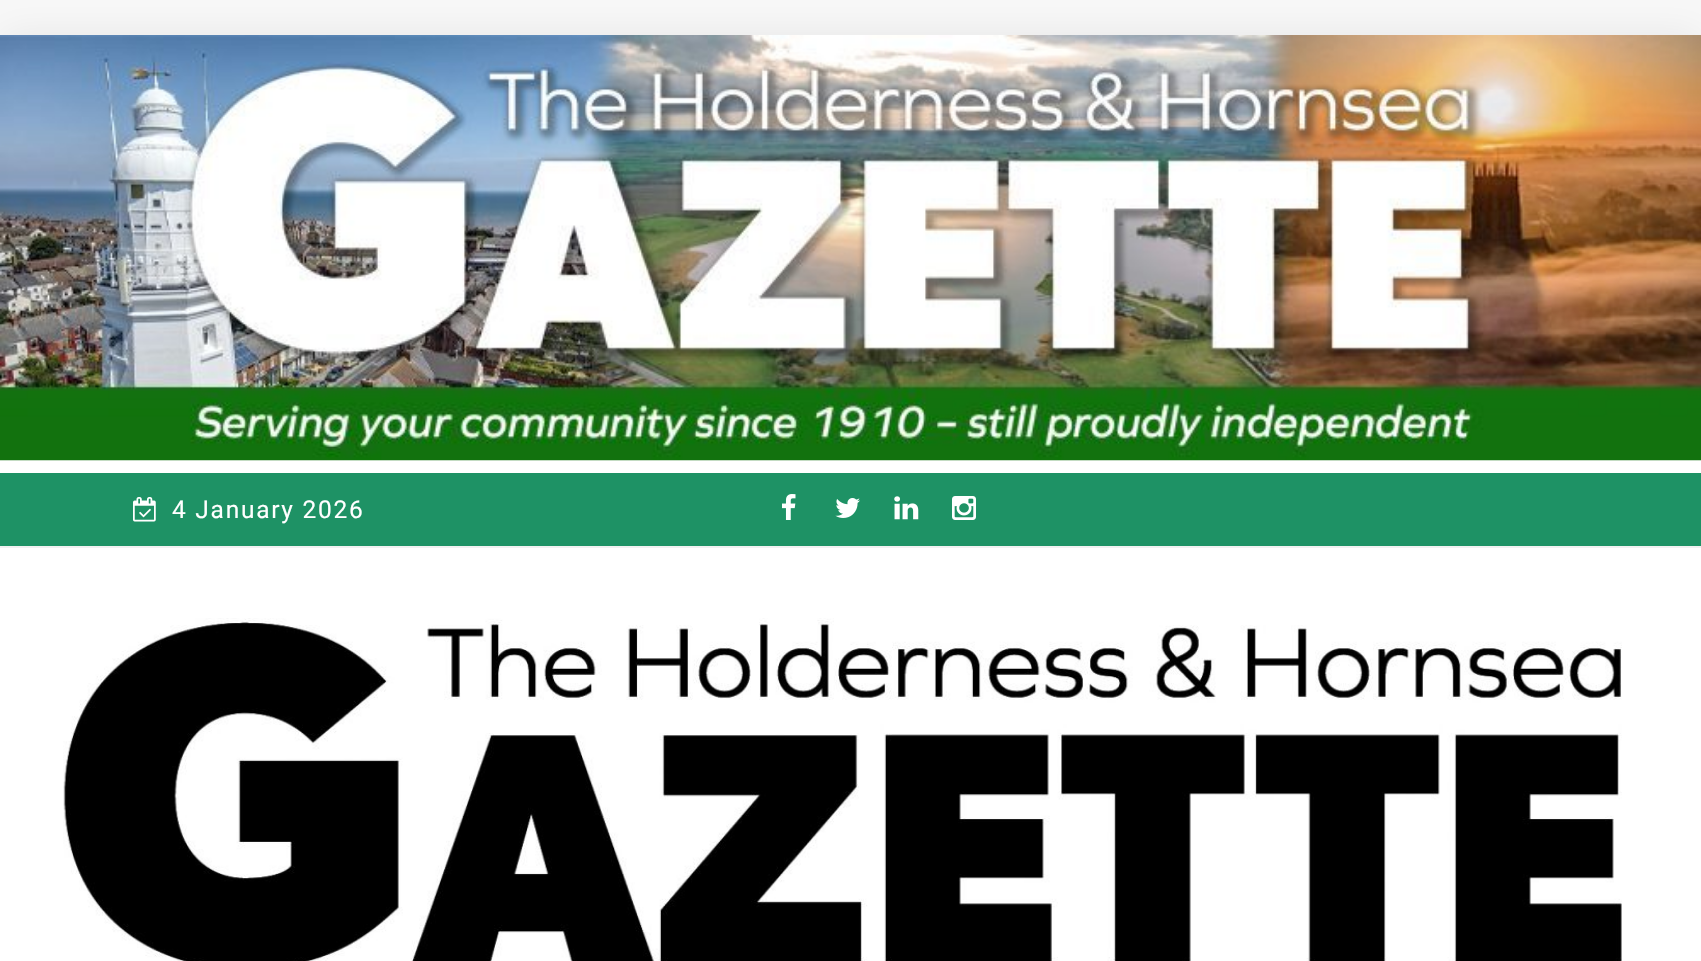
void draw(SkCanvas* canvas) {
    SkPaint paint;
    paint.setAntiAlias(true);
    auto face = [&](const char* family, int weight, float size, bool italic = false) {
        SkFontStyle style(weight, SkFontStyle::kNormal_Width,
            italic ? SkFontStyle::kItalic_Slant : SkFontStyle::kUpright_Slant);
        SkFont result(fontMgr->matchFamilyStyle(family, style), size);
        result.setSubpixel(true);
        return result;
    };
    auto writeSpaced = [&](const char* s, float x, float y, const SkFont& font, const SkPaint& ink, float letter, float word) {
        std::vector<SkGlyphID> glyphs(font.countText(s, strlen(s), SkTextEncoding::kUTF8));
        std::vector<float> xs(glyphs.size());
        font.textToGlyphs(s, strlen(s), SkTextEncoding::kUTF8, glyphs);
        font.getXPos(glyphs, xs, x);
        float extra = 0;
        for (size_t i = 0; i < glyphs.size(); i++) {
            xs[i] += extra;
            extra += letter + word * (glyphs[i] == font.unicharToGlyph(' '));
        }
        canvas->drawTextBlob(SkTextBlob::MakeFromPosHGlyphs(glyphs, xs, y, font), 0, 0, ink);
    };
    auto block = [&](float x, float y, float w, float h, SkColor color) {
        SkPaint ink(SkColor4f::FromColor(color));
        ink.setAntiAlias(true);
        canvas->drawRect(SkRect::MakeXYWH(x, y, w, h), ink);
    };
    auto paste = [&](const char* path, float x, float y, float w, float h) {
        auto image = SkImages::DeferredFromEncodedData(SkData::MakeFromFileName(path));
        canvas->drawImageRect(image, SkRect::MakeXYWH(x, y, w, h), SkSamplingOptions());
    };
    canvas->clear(SkColorSetRGB(248, 248, 248));
    paint.setColor(SkColorSetARGB(18, 0, 0, 0));
    paint.setMaskFilter(SkMaskFilter::MakeBlur(kNormal_SkBlurStyle, 17.5f));
    canvas->drawRect(SkRect::MakeXYWH(4, 35, 1694, 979), paint);
    paint.setMaskFilter(nullptr);
    block(0, 460, 1701, 501, SK_ColorWHITE);
    paste("pic1.png", 0, 35, 1701, 426);
    block(0, 473, 1701, 73, SkColorSetRGB(30, 146, 101));
    block(0, 546, 1701, 2, SkColorSetRGB(241, 241, 241));
    paste("pic2.png", 133, 497, 23, 25);
    auto kFont1 = face("Roboto", 400, 24.5f);
    paint.setColor(SK_ColorWHITE);
    writeSpaced("4 January 2026", 172, 518, kFont1, paint, 1.75f, 0);
    paste("pic3.png", 782, 494, 14, 26);
    paste("pic4.png", 835, 498, 25, 20);
    paste("pic5.png", 894, 496, 25, 24);
    paste("pic6.png", 952, 496, 24, 24);
    paste("pic7.png", 63, 618, 1559, 343);
}
